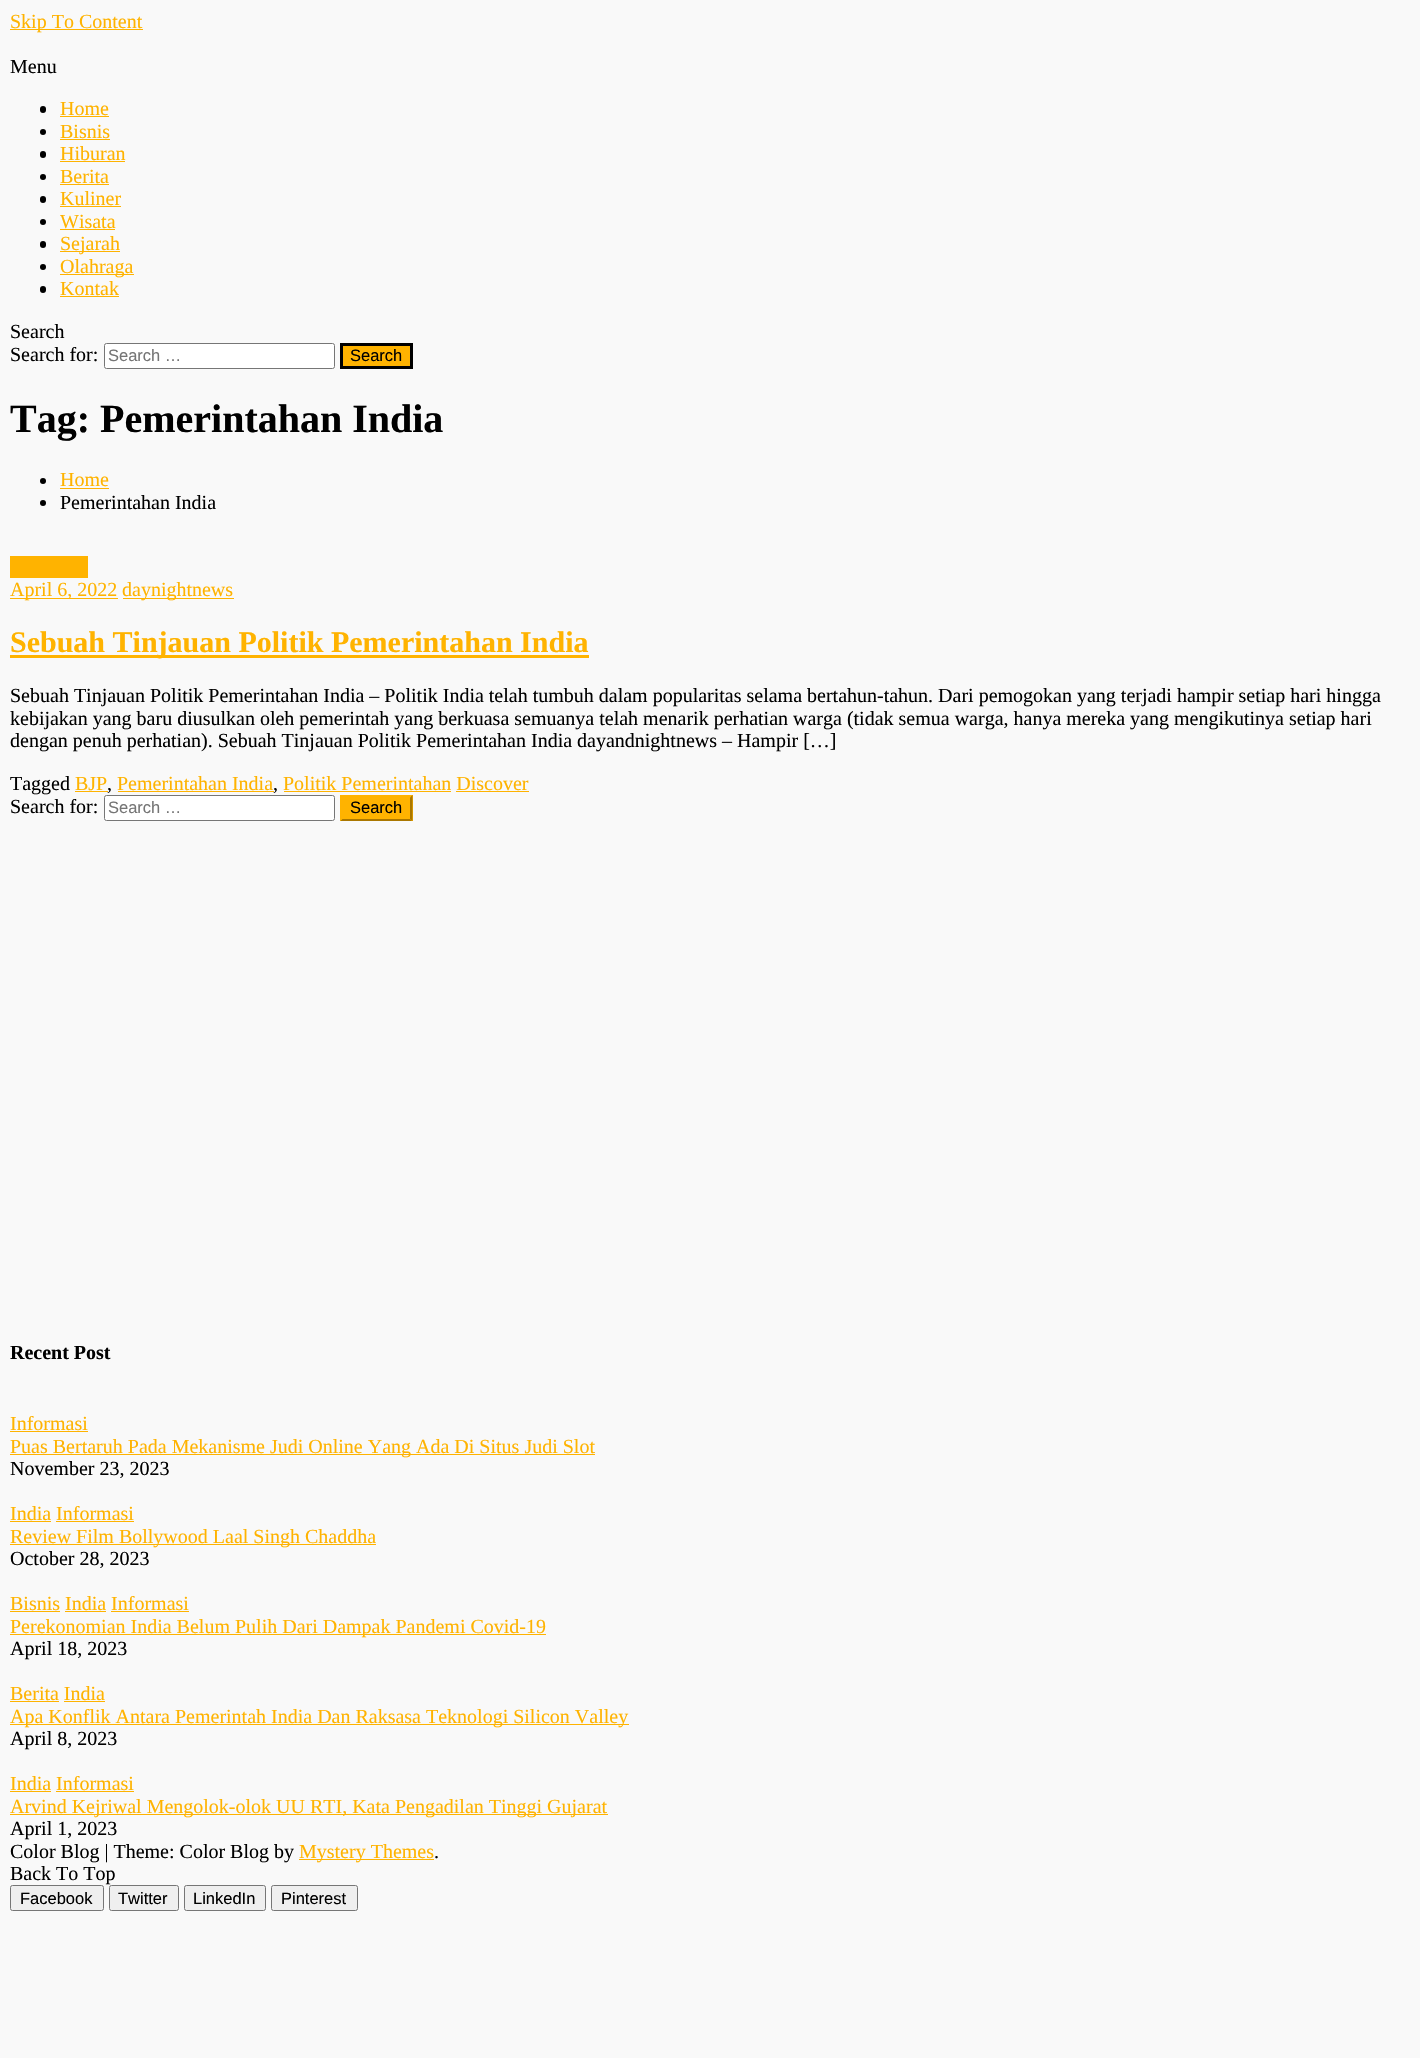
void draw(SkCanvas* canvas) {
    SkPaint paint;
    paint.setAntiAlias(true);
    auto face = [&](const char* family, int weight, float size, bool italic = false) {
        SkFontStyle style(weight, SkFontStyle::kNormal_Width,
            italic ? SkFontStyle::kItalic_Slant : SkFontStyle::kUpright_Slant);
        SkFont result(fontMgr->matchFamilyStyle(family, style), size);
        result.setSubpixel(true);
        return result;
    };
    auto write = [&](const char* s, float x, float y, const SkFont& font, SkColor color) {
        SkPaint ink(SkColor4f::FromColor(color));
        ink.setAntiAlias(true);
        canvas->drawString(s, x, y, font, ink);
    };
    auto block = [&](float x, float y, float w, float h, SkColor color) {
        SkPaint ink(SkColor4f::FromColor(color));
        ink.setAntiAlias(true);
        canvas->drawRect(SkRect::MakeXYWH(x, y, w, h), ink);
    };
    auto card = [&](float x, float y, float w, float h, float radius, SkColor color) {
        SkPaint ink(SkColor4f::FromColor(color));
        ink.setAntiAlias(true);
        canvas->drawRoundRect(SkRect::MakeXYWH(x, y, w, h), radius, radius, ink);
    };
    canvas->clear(SkColorSetRGB(249, 249, 249));
    block(10, 29, 133, 1, SkColorSetRGB(255, 179, 0));
    auto kFont1 = face("Liberation Serif", 400, 20);
    write("Skip To Content", 10, 28, kFont1, SkColorSetRGB(255, 179, 0));
    write("Menu", 10, 73, kFont1, SK_ColorBLACK);
    card(40, 106, 6, 7, 3, SK_ColorBLACK);
    write("Home", 60, 115, kFont1, SkColorSetRGB(255, 179, 0));
    block(60, 116, 49, 1, SkColorSetRGB(255, 179, 0));
    paint.setColor(SK_ColorBLACK);
    canvas->drawCircle(43, 132, 3, paint);
    write("Bisnis", 60, 138, kFont1, SkColorSetRGB(255, 179, 0));
    block(60, 139, 50, 1, SkColorSetRGB(255, 179, 0));
    card(40, 151, 6, 7, 3, SK_ColorBLACK);
    write("Hiburan", 60, 160, kFont1, SkColorSetRGB(255, 179, 0));
    block(60, 161, 65, 1, SkColorSetRGB(255, 179, 0));
    canvas->drawCircle(43, 177, 3, paint);
    write("Berita", 60, 183, kFont1, SkColorSetRGB(255, 179, 0));
    block(60, 184, 49, 1, SkColorSetRGB(255, 179, 0));
    card(40, 196, 6, 7, 3, SK_ColorBLACK);
    write("Kuliner", 60, 205, kFont1, SkColorSetRGB(255, 179, 0));
    block(60, 206, 61, 1, SkColorSetRGB(255, 179, 0));
    canvas->drawCircle(43, 222, 3, paint);
    write("Wisata", 60, 228, kFont1, SkColorSetRGB(255, 179, 0));
    block(60, 229, 55, 1, SkColorSetRGB(255, 179, 0));
    card(40, 241, 6, 7, 3, SK_ColorBLACK);
    block(60, 251, 60, 1, SkColorSetRGB(255, 179, 0));
    write("Sejarah", 60, 250, kFont1, SkColorSetRGB(255, 179, 0));
    canvas->drawCircle(43, 267, 3, paint);
    block(60, 274, 74, 1, SkColorSetRGB(255, 179, 0));
    write("Olahraga", 60, 273, kFont1, SkColorSetRGB(255, 179, 0));
    card(40, 286, 6, 7, 3, SK_ColorBLACK);
    write("Kontak", 60, 295, kFont1, SkColorSetRGB(255, 179, 0));
    block(60, 296, 59, 1, SkColorSetRGB(255, 179, 0));
    write("Search", 10, 338, kFont1, SK_ColorBLACK);
    write("Search for:", 10, 361, kFont1, SK_ColorBLACK);
    paint.setColor(SK_ColorWHITE);
    canvas->drawRoundRect(SkRect::MakeXYWH(104.5f, 343.5f, 230, 25), 2, 2, paint);
    paint.setStyle(SkPaint::kStroke_Style);
    paint.setStrokeWidth(1);
    paint.setColor(SkColorSetRGB(118, 118, 118));
    canvas->drawRoundRect(SkRect::MakeXYWH(104.5f, 343.5f, 230, 25), 2, 2, paint);
    auto kFont2 = face("Liberation Sans", 400, 16.5f);
    write("Search …", 108, 361, kFont2, SkColorSetRGB(117, 117, 117));
    paint.setStyle(SkPaint::kFill_Style);
    paint.setColor(SkColorSetRGB(255, 179, 0));
    canvas->drawRect(SkRect::MakeXYWH(341.5f, 344.5f, 70, 23), paint);
    paint.setStyle(SkPaint::kStroke_Style);
    paint.setStrokeWidth(3);
    paint.setColor(SK_ColorBLACK);
    canvas->drawRect(SkRect::MakeXYWH(341.5f, 344.5f, 70, 23), paint);
    write("Search", 350, 361, kFont2, SK_ColorBLACK);
    auto kFont3 = face("Liberation Serif", 700, 40);
    write("Tag: Pemerintahan India", 10, 432, kFont3, SK_ColorBLACK);
    paint.setStyle(SkPaint::kFill_Style);
    canvas->drawCircle(43, 481, 3, paint);
    write("Home", 60, 486, kFont1, SkColorSetRGB(255, 179, 0));
    block(60, 488, 49, 1, SkColorSetRGB(255, 179, 0));
    canvas->drawCircle(43, 503, 3, paint);
    write("Pemerintahan India", 60, 509, kFont1, SK_ColorBLACK);
    block(10, 556, 78, 22, SkColorSetRGB(255, 179, 0));
    block(10, 598, 108, 1, SkColorSetRGB(255, 179, 0));
    write("April 6, 2022", 10, 596, kFont1, SkColorSetRGB(255, 179, 0));
    block(123, 598, 111, 1, SkColorSetRGB(255, 179, 0));
    write("daynightnews", 122, 596, kFont1, SkColorSetRGB(255, 179, 0));
    block(10, 655, 579, 3, SkColorSetRGB(255, 179, 0));
    auto kFont4 = face("Liberation Serif", 700, 30);
    write("Sebuah Tinjauan Politik Pemerintahan India", 10, 652, kFont4, SkColorSetRGB(255, 179, 0));
    write("Sebuah Tinjauan Politik Pemerintahan India – Politik India telah tumbuh dalam popularitas selama bertahun-tahun. Dari pemogokan yang terjadi hampir setiap hari hingga", 10, 702, kFont1, SK_ColorBLACK);
    write("kebijakan yang baru diusulkan oleh pemerintah yang berkuasa semuanya telah menarik perhatian warga (tidak semua warga, hanya mereka yang mengikutinya setiap hari", 10, 725, kFont1, SK_ColorBLACK);
    write("dengan penuh perhatian). Sebuah Tinjauan Politik Pemerintahan India dayandnightnews – Hampir […]", 10, 747, kFont1, SK_ColorBLACK);
    write("Tagged", 10, 790, kFont1, SK_ColorBLACK);
    write("BJP", 75, 790, kFont1, SkColorSetRGB(255, 179, 0));
    block(75, 791, 33, 1, SkColorSetRGB(255, 179, 0));
    write(",", 107, 790, kFont1, SK_ColorBLACK);
    write("Pemerintahan India", 117, 790, kFont1, SkColorSetRGB(255, 179, 0));
    write(",", 273, 790, kFont1, SK_ColorBLACK);
    block(118, 791, 156, 1, SkColorSetRGB(255, 179, 0));
    block(284, 791, 167, 1, SkColorSetRGB(255, 179, 0));
    write("Politik Pemerintahan Discover", 283, 790, kFont1, SkColorSetRGB(255, 179, 0));
    block(456, 791, 73, 1, SkColorSetRGB(255, 179, 0));
    write("Search for:", 10, 813, kFont1, SK_ColorBLACK);
    paint.setColor(SK_ColorWHITE);
    canvas->drawRoundRect(SkRect::MakeXYWH(104.5f, 795.5f, 230, 25), 2, 2, paint);
    paint.setStyle(SkPaint::kStroke_Style);
    paint.setStrokeWidth(1);
    paint.setColor(SkColorSetRGB(118, 118, 118));
    canvas->drawRoundRect(SkRect::MakeXYWH(104.5f, 795.5f, 230, 25), 2, 2, paint);
    write("Search …", 108, 813, kFont2, SkColorSetRGB(117, 117, 117));
    block(340, 795, 73, 26, SkColorSetRGB(255, 179, 0));
    paint.setStyle(SkPaint::kFill_Style);
    paint.setColor(SkColorSetRGB(170, 119, 0));
    canvas->drawPath(SkPathBuilder().moveTo(412.5f, 795).lineTo(412.5f, 821).lineTo(410, 819).lineTo(410, 797.5f).close().detach(), paint);
    canvas->drawPath(SkPathBuilder().moveTo(412, 821).lineTo(340, 821).lineTo(342, 819).lineTo(410, 819).close().detach(), paint);
    paint.setColor(SkColorSetRGB(255, 179, 0));
    canvas->drawPath(SkPathBuilder().moveTo(340, 821).lineTo(340, 795).lineTo(342.5f, 797.5f).lineTo(342.5f, 819).close().detach(), paint);
    write("Search", 350, 813, kFont2, SK_ColorBLACK);
    auto kFont5 = face("Liberation Serif", 700, 20);
    write("Recent Post", 10, 1359, kFont5, SK_ColorBLACK);
    write("Informasi", 10, 1430, kFont1, SkColorSetRGB(255, 179, 0));
    block(10, 1431, 78, 1, SkColorSetRGB(255, 179, 0));
    block(10, 1454, 585, 1, SkColorSetRGB(255, 179, 0));
    write("Puas Bertaruh Pada Mekanisme Judi Online Yang Ada Di Situs Judi Slot", 10, 1453, kFont1, SkColorSetRGB(255, 179, 0));
    write("November 23, 2023", 10, 1475, kFont1, SK_ColorBLACK);
    write("India Informasi", 10, 1520, kFont1, SkColorSetRGB(255, 179, 0));
    block(10, 1521, 41, 1, SkColorSetRGB(255, 179, 0));
    block(56, 1521, 78, 1, SkColorSetRGB(255, 179, 0));
    block(10, 1544, 366, 1, SkColorSetRGB(255, 179, 0));
    write("Review Film Bollywood Laal Singh Chaddha", 10, 1543, kFont1, SkColorSetRGB(255, 179, 0));
    write("October 28, 2023", 10, 1565, kFont1, SK_ColorBLACK);
    write("Bisnis India Informasi", 10, 1610, kFont1, SkColorSetRGB(255, 179, 0));
    block(10, 1611, 50, 1, SkColorSetRGB(255, 179, 0));
    block(65, 1611, 41, 1, SkColorSetRGB(255, 179, 0));
    block(111, 1611, 78, 1, SkColorSetRGB(255, 179, 0));
    block(10, 1634, 536, 1, SkColorSetRGB(255, 179, 0));
    write("Perekonomian India Belum Pulih Dari Dampak Pandemi Covid-19", 10, 1633, kFont1, SkColorSetRGB(255, 179, 0));
    write("April 18, 2023", 10, 1655, kFont1, SK_ColorBLACK);
    write("Berita India", 10, 1700, kFont1, SkColorSetRGB(255, 179, 0));
    block(10, 1701, 49, 1, SkColorSetRGB(255, 179, 0));
    block(64, 1701, 41, 1, SkColorSetRGB(255, 179, 0));
    block(10, 1724, 619, 1, SkColorSetRGB(255, 179, 0));
    write("Apa Konflik Antara Pemerintah India Dan Raksasa Teknologi Silicon Valley", 10, 1723, kFont1, SkColorSetRGB(255, 179, 0));
    write("April 8, 2023", 10, 1745, kFont1, SK_ColorBLACK);
    write("India Informasi", 10, 1790, kFont1, SkColorSetRGB(255, 179, 0));
    block(10, 1791, 41, 1, SkColorSetRGB(255, 179, 0));
    block(56, 1791, 78, 1, SkColorSetRGB(255, 179, 0));
    block(10, 1814, 598, 1, SkColorSetRGB(255, 179, 0));
    write("Arvind Kejriwal Mengolok-olok UU RTI, Kata Pengadilan Tinggi Gujarat", 10, 1813, kFont1, SkColorSetRGB(255, 179, 0));
    write("April 1, 2023", 10, 1835, kFont1, SK_ColorBLACK);
    write("Color Blog | Theme: Color Blog by", 10, 1858, kFont1, SK_ColorBLACK);
    block(299, 1859, 135, 1, SkColorSetRGB(255, 179, 0));
    write("Mystery Themes", 299, 1858, kFont1, SkColorSetRGB(255, 179, 0));
    write(".", 434, 1858, kFont1, SK_ColorBLACK);
    write("Back To Top", 10, 1880, kFont1, SK_ColorBLACK);
    paint.setColor(SkColorSetRGB(239, 239, 239));
    canvas->drawRoundRect(SkRect::MakeXYWH(10.5f, 1885.5f, 93, 25), 2, 2, paint);
    paint.setStyle(SkPaint::kStroke_Style);
    paint.setColor(SkColorSetRGB(118, 118, 118));
    canvas->drawRoundRect(SkRect::MakeXYWH(10.5f, 1885.5f, 93, 25), 2, 2, paint);
    write("Facebook", 20, 1904, kFont2, SK_ColorBLACK);
    paint.setStyle(SkPaint::kFill_Style);
    paint.setColor(SkColorSetRGB(239, 239, 239));
    canvas->drawRoundRect(SkRect::MakeXYWH(109.5f, 1885.5f, 69, 25), 2, 2, paint);
    paint.setStyle(SkPaint::kStroke_Style);
    paint.setColor(SkColorSetRGB(118, 118, 118));
    canvas->drawRoundRect(SkRect::MakeXYWH(109.5f, 1885.5f, 69, 25), 2, 2, paint);
    write("Twitter", 118, 1904, kFont2, SK_ColorBLACK);
    paint.setStyle(SkPaint::kFill_Style);
    paint.setColor(SkColorSetRGB(239, 239, 239));
    canvas->drawRoundRect(SkRect::MakeXYWH(184.5f, 1885.5f, 81, 25), 2, 2, paint);
    paint.setStyle(SkPaint::kStroke_Style);
    paint.setColor(SkColorSetRGB(118, 118, 118));
    canvas->drawRoundRect(SkRect::MakeXYWH(184.5f, 1885.5f, 81, 25), 2, 2, paint);
    write("LinkedIn", 193, 1904, kFont2, SK_ColorBLACK);
    paint.setStyle(SkPaint::kFill_Style);
    paint.setColor(SkColorSetRGB(239, 239, 239));
    canvas->drawRoundRect(SkRect::MakeXYWH(271.5f, 1885.5f, 86, 25), 2, 2, paint);
    paint.setStyle(SkPaint::kStroke_Style);
    paint.setColor(SkColorSetRGB(118, 118, 118));
    canvas->drawRoundRect(SkRect::MakeXYWH(271.5f, 1885.5f, 86, 25), 2, 2, paint);
    write("Pinterest", 281, 1904, kFont2, SK_ColorBLACK);
}
